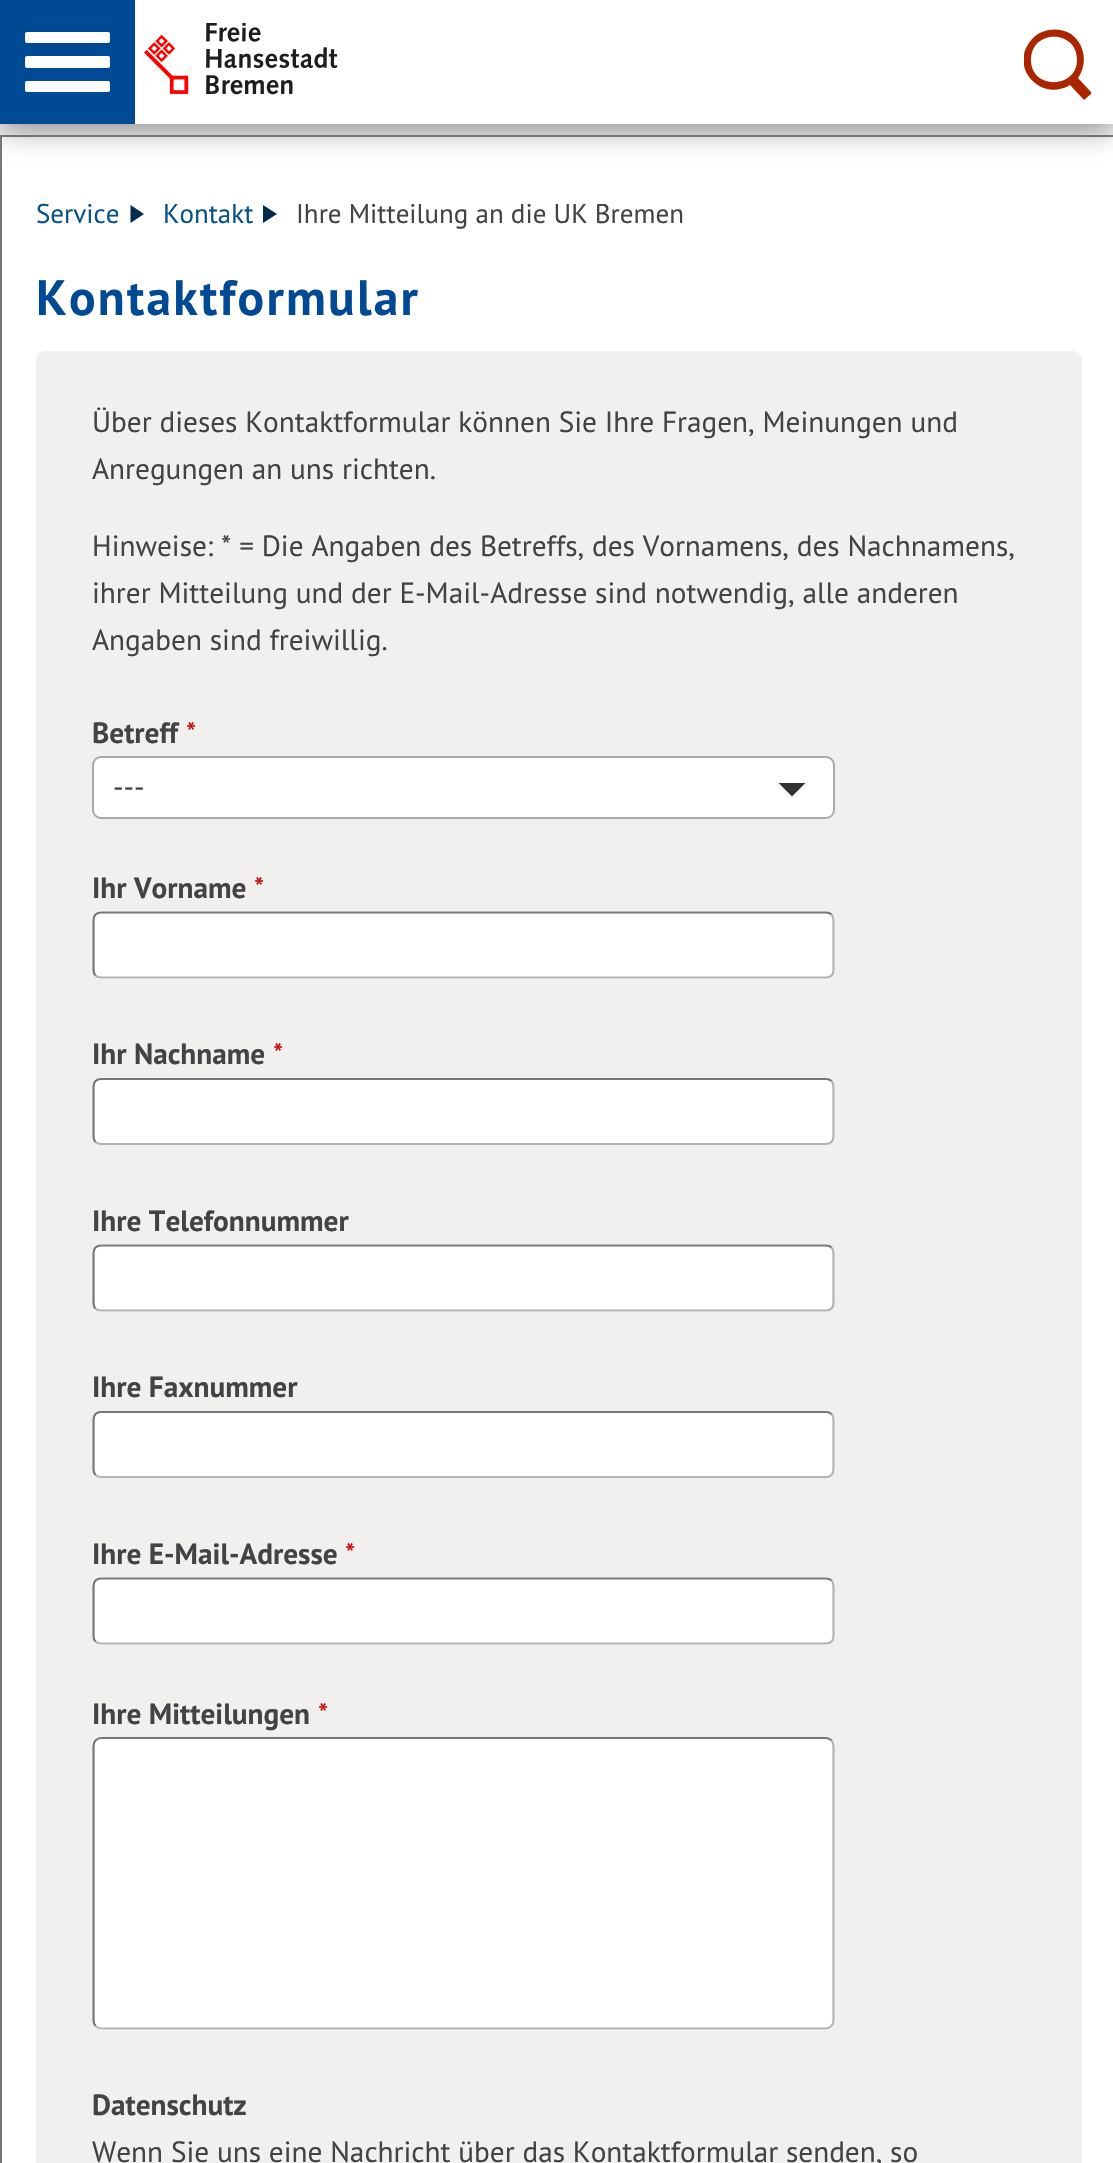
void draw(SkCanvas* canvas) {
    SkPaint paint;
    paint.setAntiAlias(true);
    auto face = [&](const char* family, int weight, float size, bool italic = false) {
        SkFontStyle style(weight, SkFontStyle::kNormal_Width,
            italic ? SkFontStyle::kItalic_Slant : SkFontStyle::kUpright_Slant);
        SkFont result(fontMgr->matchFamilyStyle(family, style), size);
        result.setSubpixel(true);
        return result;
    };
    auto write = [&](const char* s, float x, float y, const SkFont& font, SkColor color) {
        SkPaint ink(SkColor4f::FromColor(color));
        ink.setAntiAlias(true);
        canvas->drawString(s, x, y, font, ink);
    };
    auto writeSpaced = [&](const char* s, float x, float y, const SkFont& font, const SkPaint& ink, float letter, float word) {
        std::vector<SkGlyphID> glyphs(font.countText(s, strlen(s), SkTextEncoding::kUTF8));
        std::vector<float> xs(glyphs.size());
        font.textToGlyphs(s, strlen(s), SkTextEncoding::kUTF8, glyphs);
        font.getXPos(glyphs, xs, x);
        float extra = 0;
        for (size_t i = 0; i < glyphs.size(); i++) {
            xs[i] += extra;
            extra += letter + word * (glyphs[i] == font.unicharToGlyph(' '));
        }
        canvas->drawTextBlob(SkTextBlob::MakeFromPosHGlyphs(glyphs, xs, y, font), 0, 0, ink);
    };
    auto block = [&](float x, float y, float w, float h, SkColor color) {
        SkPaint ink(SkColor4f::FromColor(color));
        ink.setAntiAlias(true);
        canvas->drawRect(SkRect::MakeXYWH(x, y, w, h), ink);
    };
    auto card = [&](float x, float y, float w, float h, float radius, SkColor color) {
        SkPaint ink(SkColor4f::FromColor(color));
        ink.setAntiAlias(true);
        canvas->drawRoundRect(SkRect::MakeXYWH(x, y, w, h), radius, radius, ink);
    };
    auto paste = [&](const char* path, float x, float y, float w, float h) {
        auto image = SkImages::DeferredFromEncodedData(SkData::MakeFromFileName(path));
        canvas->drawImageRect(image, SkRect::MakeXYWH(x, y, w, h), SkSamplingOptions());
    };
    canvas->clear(SkColorSetRGB(243, 243, 243));
    paint.setColor(SK_ColorWHITE);
    canvas->drawRect(SkRect::MakeXYWH(1, 136, 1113, 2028), paint);
    paint.setStyle(SkPaint::kStroke_Style);
    paint.setStrokeWidth(2);
    paint.setColor(SkColorSetRGB(119, 119, 119));
    canvas->drawRect(SkRect::MakeXYWH(1, 136, 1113, 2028), paint);
    paint.setStyle(SkPaint::kFill_Style);
    paint.setColor(SkColorSetARGB(204, 100, 100, 100));
    paint.setMaskFilter(SkMaskFilter::MakeBlur(kNormal_SkBlurStyle, 14.5f));
    canvas->drawRect(SkRect::MakeXYWH(0, 5, 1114, 123), paint);
    paint.setMaskFilter(nullptr);
    block(135, 0, 978, 124, SK_ColorWHITE);
    paste("pic1.png", 144, 23, 194, 72);
    canvas->save();
    canvas->clipRect(SkRect::MakeXYWH(1024, 29, 67, 72));
    paint.setColor(SkColorSetRGB(171, 38, 0));
    canvas->drawPath(SkPathBuilder().moveTo(1092, 93).lineTo(1078, 78).cubicTo(1088, 64, 1085, 44, 1071, 34).cubicTo(1063, 29, 1052, 28, 1042, 32).cubicTo(1037, 34, 1032, 38, 1029, 43).cubicTo(1010, 70, 1043, 102, 1070, 85).lineTo(1084, 100).close().moveTo(1031, 60).cubicTo(1031, 29, 1077, 29, 1077, 60).cubicTo(1077, 89, 1031, 90, 1031, 60).close().detach(), paint);
    canvas->restore();
    block(0, 0, 135, 124, SkColorSetRGB(0, 73, 148));
    card(25, 32, 85, 11, 2, SK_ColorWHITE);
    card(25, 56, 85, 12, 2, SK_ColorWHITE);
    card(25, 81, 85, 11, 2, SK_ColorWHITE);
    auto kFont1 = face("PT Sans", 400, 27);
    write("Service", 36, 223, kFont1, SkColorSetRGB(8, 84, 136));
    paint.setColor(SkColorSetRGB(0, 43, 75));
    canvas->drawPath(SkPathBuilder().moveTo(130.5f, 223).lineTo(130.5f, 205).lineTo(144, 214).close().detach(), paint);
    write("Kontakt", 163, 223, kFont1, SkColorSetRGB(8, 84, 136));
    canvas->drawPath(SkPathBuilder().moveTo(263, 223).lineTo(263, 205).lineTo(277, 214).close().detach(), paint);
    write("Ihre Mitteilung an die UK Bremen", 296, 223, kFont1, SkColorSetRGB(67, 67, 69));
    auto kFont2 = face("PT Sans", 700, 49.5f);
    paint.setColor(SkColorSetRGB(0, 73, 148));
    writeSpaced("Kontaktformular", 36, 315, kFont2, paint, 2.25f, 0);
    card(36, 351, 1046, 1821, 9, SkColorSetRGB(242, 240, 239));
    auto kFont3 = face("PT Sans", 400, 29.25f);
    write("Über dieses Kontaktformular können Sie Ihre Fragen, Meinungen und", 92, 432, kFont3, SkColorSetRGB(67, 67, 69));
    write("Anregungen an uns richten.", 92, 479, kFont3, SkColorSetRGB(67, 67, 69));
    write("Hinweise: * = Die Angaben des Betreffs, des Vornamens, des Nachnamens,", 92, 556, kFont3, SkColorSetRGB(67, 67, 69));
    write("ihrer Mitteilung und der E-Mail-Adresse sind notwendig, alle anderen", 92, 603, kFont3, SkColorSetRGB(67, 67, 69));
    write("Angaben sind freiwillig.", 92, 650, kFont3, SkColorSetRGB(67, 67, 69));
    auto kFont4 = face("PT Sans", 700, 29.25f);
    write("Betreff", 92, 743, kFont4, SkColorSetRGB(67, 67, 69));
    write("*", 186, 743, kFont3, SkColorSetRGB(204, 0, 0));
    paint.setColor(SK_ColorWHITE);
    canvas->drawRoundRect(SkRect::MakeXYWH(93, 757, 741, 61), 8, 8, paint);
    paint.setStyle(SkPaint::kStroke_Style);
    paint.setColor(SkColorSetRGB(170, 170, 170));
    canvas->drawRoundRect(SkRect::MakeXYWH(93, 757, 741, 61), 8, 8, paint);
    write("---", 113, 797, kFont3, SkColorSetRGB(67, 67, 69));
    paint.setStyle(SkPaint::kFill_Style);
    paint.setColor(SkColorSetRGB(51, 51, 51));
    canvas->drawPath(SkPathBuilder().moveTo(778.5f, 783).lineTo(805.5f, 783).lineTo(792, 796.5f).close().detach(), paint);
    write("Ihr Vorname", 92, 898, kFont4, SkColorSetRGB(67, 67, 69));
    write("*", 254, 898, kFont3, SkColorSetRGB(204, 0, 0));
    card(92, 911, 743, 68, 9, SK_ColorWHITE);
    paint.setStyle(SkPaint::kStroke_Style);
    paint.setStrokeWidth(2.2f);
    paint.setColor(SkColorSetRGB(179, 179, 179));
    canvas->drawPath(SkPathBuilder().moveTo(831.5f, 914.5f).cubicTo(833, 916, 833.5f, 918, 833.5f, 920).lineTo(833.5f, 970).cubicTo(833.5f, 972, 833, 974, 831.5f, 975.5f).cubicTo(830, 977, 828, 977.5f, 826, 977.5f).lineTo(101, 977.5f).cubicTo(99, 977.5f, 97, 977, 95.5f, 975.5f).detach(), paint);
    paint.setColor(SkColorSetRGB(119, 119, 119));
    canvas->drawPath(SkPathBuilder().moveTo(95.5f, 975.5f).cubicTo(94, 974, 93.5f, 972, 93.5f, 970).lineTo(93.5f, 920).cubicTo(93.5f, 918, 94, 916, 95.5f, 914.5f).cubicTo(97, 913, 99, 912.5f, 101, 912.5f).lineTo(826, 912.5f).cubicTo(828, 912.5f, 830, 913, 831.5f, 914.5f).detach(), paint);
    write("Ihr Nachname", 92, 1064, kFont4, SkColorSetRGB(67, 67, 69));
    write("*", 273, 1064, kFont3, SkColorSetRGB(204, 0, 0));
    card(92, 1078, 743, 67, 9, SK_ColorWHITE);
    paint.setColor(SkColorSetRGB(179, 179, 179));
    canvas->drawPath(SkPathBuilder().moveTo(831.5f, 1081).cubicTo(833, 1082.5f, 833.5f, 1084.5f, 833.5f, 1087).lineTo(833.5f, 1136).cubicTo(833.5f, 1138.5f, 833, 1140.5f, 831.5f, 1142).cubicTo(830, 1143.5f, 828, 1144, 826, 1144).lineTo(101, 1144).cubicTo(99, 1144, 97, 1143.5f, 95.5f, 1142).detach(), paint);
    paint.setColor(SkColorSetRGB(119, 119, 119));
    canvas->drawPath(SkPathBuilder().moveTo(95.5f, 1142).cubicTo(94, 1140.5f, 93.5f, 1138.5f, 93.5f, 1136).lineTo(93.5f, 1087).cubicTo(93.5f, 1084.5f, 94, 1082.5f, 95.5f, 1081).cubicTo(97, 1079.5f, 99, 1079, 101, 1079).lineTo(826, 1079).cubicTo(828, 1079, 830, 1079.5f, 831.5f, 1081).detach(), paint);
    write("Ihre Telefonnummer", 92, 1231, kFont4, SkColorSetRGB(67, 67, 69));
    card(92, 1244, 743, 68, 9, SK_ColorWHITE);
    paint.setColor(SkColorSetRGB(179, 179, 179));
    canvas->drawPath(SkPathBuilder().moveTo(831.5f, 1247.5f).cubicTo(833, 1249, 833.5f, 1251, 833.5f, 1253).lineTo(833.5f, 1303).cubicTo(833.5f, 1305, 833, 1307, 831.5f, 1308.5f).cubicTo(830, 1310, 828, 1310.5f, 826, 1310.5f).lineTo(101, 1310.5f).cubicTo(99, 1310.5f, 97, 1310, 95.5f, 1308.5f).detach(), paint);
    paint.setColor(SkColorSetRGB(119, 119, 119));
    canvas->drawPath(SkPathBuilder().moveTo(95.5f, 1308.5f).cubicTo(94, 1307, 93.5f, 1305, 93.5f, 1303).lineTo(93.5f, 1253).cubicTo(93.5f, 1251, 94, 1249, 95.5f, 1247.5f).cubicTo(97, 1246, 99, 1245.5f, 101, 1245.5f).lineTo(826, 1245.5f).cubicTo(828, 1245.5f, 830, 1246, 831.5f, 1247.5f).detach(), paint);
    write("Ihre Faxnummer", 92, 1397, kFont4, SkColorSetRGB(67, 67, 69));
    card(92, 1411, 743, 67, 9, SK_ColorWHITE);
    paint.setColor(SkColorSetRGB(179, 179, 179));
    canvas->drawPath(SkPathBuilder().moveTo(831.5f, 1414).cubicTo(833, 1415.5f, 833.5f, 1417.5f, 833.5f, 1420).lineTo(833.5f, 1469).cubicTo(833.5f, 1471.5f, 833, 1473.5f, 831.5f, 1475).cubicTo(830, 1476.5f, 828, 1477, 826, 1477).lineTo(101, 1477).cubicTo(99, 1477, 97, 1476.5f, 95.5f, 1475).detach(), paint);
    paint.setColor(SkColorSetRGB(119, 119, 119));
    canvas->drawPath(SkPathBuilder().moveTo(95.5f, 1475).cubicTo(94, 1473.5f, 93.5f, 1471.5f, 93.5f, 1469).lineTo(93.5f, 1420).cubicTo(93.5f, 1417.5f, 94, 1415.5f, 95.5f, 1414).cubicTo(97, 1412.5f, 99, 1412, 101, 1412).lineTo(826, 1412).cubicTo(828, 1412, 830, 1412.5f, 831.5f, 1414).detach(), paint);
    write("Ihre E-Mail-Adresse", 92, 1564, kFont4, SkColorSetRGB(67, 67, 69));
    write("*", 345, 1564, kFont3, SkColorSetRGB(204, 0, 0));
    card(92, 1577, 743, 68, 9, SK_ColorWHITE);
    paint.setColor(SkColorSetRGB(179, 179, 179));
    canvas->drawPath(SkPathBuilder().moveTo(831.5f, 1580.5f).cubicTo(833, 1582, 833.5f, 1584, 833.5f, 1586).lineTo(833.5f, 1636).cubicTo(833.5f, 1638, 833, 1640, 831.5f, 1641.5f).cubicTo(830, 1643, 828, 1643.5f, 826, 1643.5f).lineTo(101, 1643.5f).cubicTo(99, 1643.5f, 97, 1643, 95.5f, 1641.5f).detach(), paint);
    paint.setColor(SkColorSetRGB(119, 119, 119));
    canvas->drawPath(SkPathBuilder().moveTo(95.5f, 1641.5f).cubicTo(94, 1640, 93.5f, 1638, 93.5f, 1636).lineTo(93.5f, 1586).cubicTo(93.5f, 1584, 94, 1582, 95.5f, 1580.5f).cubicTo(97, 1579, 99, 1578.5f, 101, 1578.5f).lineTo(826, 1578.5f).cubicTo(828, 1578.5f, 830, 1579, 831.5f, 1580.5f).detach(), paint);
    write("Ihre Mitteilungen", 92, 1724, kFont4, SkColorSetRGB(67, 67, 69));
    write("*", 318, 1724, kFont3, SkColorSetRGB(204, 0, 0));
    card(92, 1737, 743, 293, 9, SK_ColorWHITE);
    paint.setColor(SkColorSetRGB(179, 179, 179));
    canvas->drawPath(SkPathBuilder().moveTo(831.5f, 1740.5f).cubicTo(833, 1742, 833.5f, 1744, 833.5f, 1746).lineTo(833.5f, 2020.5f).cubicTo(833.5f, 2022.5f, 833, 2024.5f, 831.5f, 2026).cubicTo(830, 2027.5f, 828, 2028.5f, 826, 2028.5f).lineTo(101, 2028.5f).cubicTo(99, 2028.5f, 97, 2027.5f, 95.5f, 2026).detach(), paint);
    paint.setColor(SkColorSetRGB(119, 119, 119));
    canvas->drawPath(SkPathBuilder().moveTo(95.5f, 2026).cubicTo(94, 2024.5f, 93.5f, 2022.5f, 93.5f, 2020.5f).lineTo(93.5f, 1746).cubicTo(93.5f, 1744, 94, 1742, 95.5f, 1740.5f).cubicTo(97, 1739, 99, 1738, 101, 1738).lineTo(826, 1738).cubicTo(828, 1738, 830, 1739, 831.5f, 1740.5f).detach(), paint);
    write("Datenschutz", 92, 2115, kFont4, SkColorSetRGB(67, 67, 69));
    write("Wenn Sie uns eine Nachricht über das Kontaktformular senden, so", 92, 2162, kFont3, SkColorSetRGB(67, 67, 69));
}
